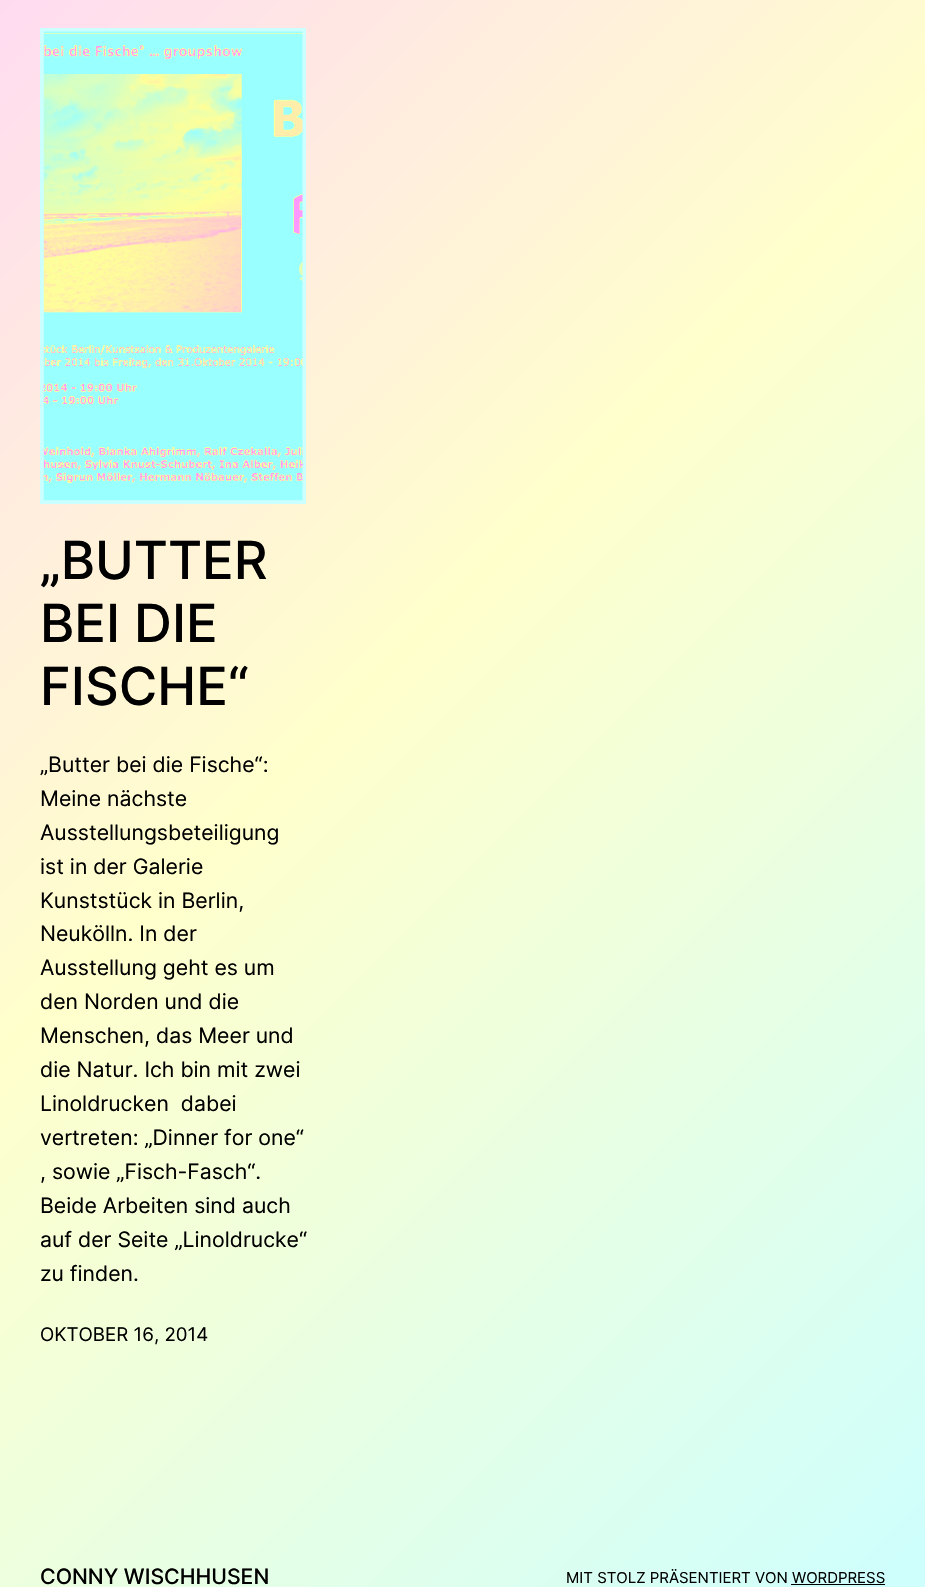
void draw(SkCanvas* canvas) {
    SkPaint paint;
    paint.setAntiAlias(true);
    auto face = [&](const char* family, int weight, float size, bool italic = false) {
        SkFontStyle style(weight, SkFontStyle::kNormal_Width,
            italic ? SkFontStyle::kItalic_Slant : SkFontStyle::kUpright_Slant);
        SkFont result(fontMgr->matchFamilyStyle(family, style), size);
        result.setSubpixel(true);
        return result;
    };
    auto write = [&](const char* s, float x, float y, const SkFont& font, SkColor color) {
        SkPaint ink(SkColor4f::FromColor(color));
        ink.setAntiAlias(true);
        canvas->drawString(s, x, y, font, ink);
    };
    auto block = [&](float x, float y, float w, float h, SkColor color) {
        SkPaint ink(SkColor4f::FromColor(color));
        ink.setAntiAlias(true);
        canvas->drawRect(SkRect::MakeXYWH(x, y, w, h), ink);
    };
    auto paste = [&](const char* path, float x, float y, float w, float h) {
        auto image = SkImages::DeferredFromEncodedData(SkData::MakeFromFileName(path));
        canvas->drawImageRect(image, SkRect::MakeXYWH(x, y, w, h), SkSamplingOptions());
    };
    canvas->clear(SK_ColorWHITE);
    {
        const SkColor colors[] = {SkColorSetRGB(255, 204, 255), SkColorSetRGB(255, 255, 204), SkColorSetRGB(204, 255, 255)};
        const float stops[] = {0, 0.5f, 1};
        const SkPoint ends[] = {{-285, -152}, {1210, 1343}};
        paint.setShader(SkGradientShader::MakeLinear(ends, colors, stops, 3, SkTileMode::kClamp));
        paint.setAlpha(255);
    }
    canvas->drawRect(SkRect::MakeXYWH(0, 0, 925, 1587), paint);
    paint.setStyle(SkPaint::kStroke_Style);
    paint.setStrokeWidth(4);
    paint.setShader(nullptr);
    paint.setColor(SkColorSetRGB(204, 255, 255));
    canvas->drawRect(SkRect::MakeXYWH(42, 30, 262, 472), paint);
    paste("pic1.png", 43, 31, 260, 470);
    auto kFont1 = face("Inter", 500, 52.5f);
    write("„BUTTER", 40, 579, kFont1, SK_ColorBLACK);
    write("BEI DIE", 40, 642, kFont1, SK_ColorBLACK);
    write("FISCHE“", 40, 705, kFont1, SK_ColorBLACK);
    auto kFont2 = face("Inter", 400, 21.25f);
    write("„Butter bei die Fische“:", 40, 772, kFont2, SK_ColorBLACK);
    write("Meine nächste", 40, 806, kFont2, SK_ColorBLACK);
    write("Ausstellungsbeteiligung", 40, 840, kFont2, SK_ColorBLACK);
    write("ist in der Galerie", 40, 874, kFont2, SK_ColorBLACK);
    write("Kunststück in Berlin,", 40, 908, kFont2, SK_ColorBLACK);
    write("Neukölln. In der", 40, 941, kFont2, SK_ColorBLACK);
    write("Ausstellung geht es um", 40, 975, kFont2, SK_ColorBLACK);
    write("den Norden und die", 40, 1009, kFont2, SK_ColorBLACK);
    write("Menschen, das Meer und", 40, 1043, kFont2, SK_ColorBLACK);
    write("die Natur. Ich bin mit zwei", 40, 1077, kFont2, SK_ColorBLACK);
    write("Linoldrucken  dabei", 40, 1111, kFont2, SK_ColorBLACK);
    write("vertreten: „Dinner for one“", 40, 1145, kFont2, SK_ColorBLACK);
    write(", sowie „Fisch-Fasch“.", 40, 1179, kFont2, SK_ColorBLACK);
    write("Beide Arbeiten sind auch", 40, 1213, kFont2, SK_ColorBLACK);
    write("auf der Seite „Linoldrucke“", 40, 1247, kFont2, SK_ColorBLACK);
    write("zu finden.", 40, 1281, kFont2, SK_ColorBLACK);
    auto kFont3 = face("Inter", 400, 18.75f);
    write("OKTOBER 16, 2014", 40, 1341, kFont3, SK_ColorBLACK);
    auto kFont4 = face("Inter", 500, 21.25f);
    write("CONNY WISCHHUSEN", 40, 1584, kFont4, SK_ColorBLACK);
    auto kFont5 = face("Inter", 400, 15);
    write("MIT STOLZ PRÄSENTIERT VON WORDPRESS", 566, 1583, kFont5, SK_ColorBLACK);
    block(791, 1584, 94, 1, SK_ColorBLACK);
}
